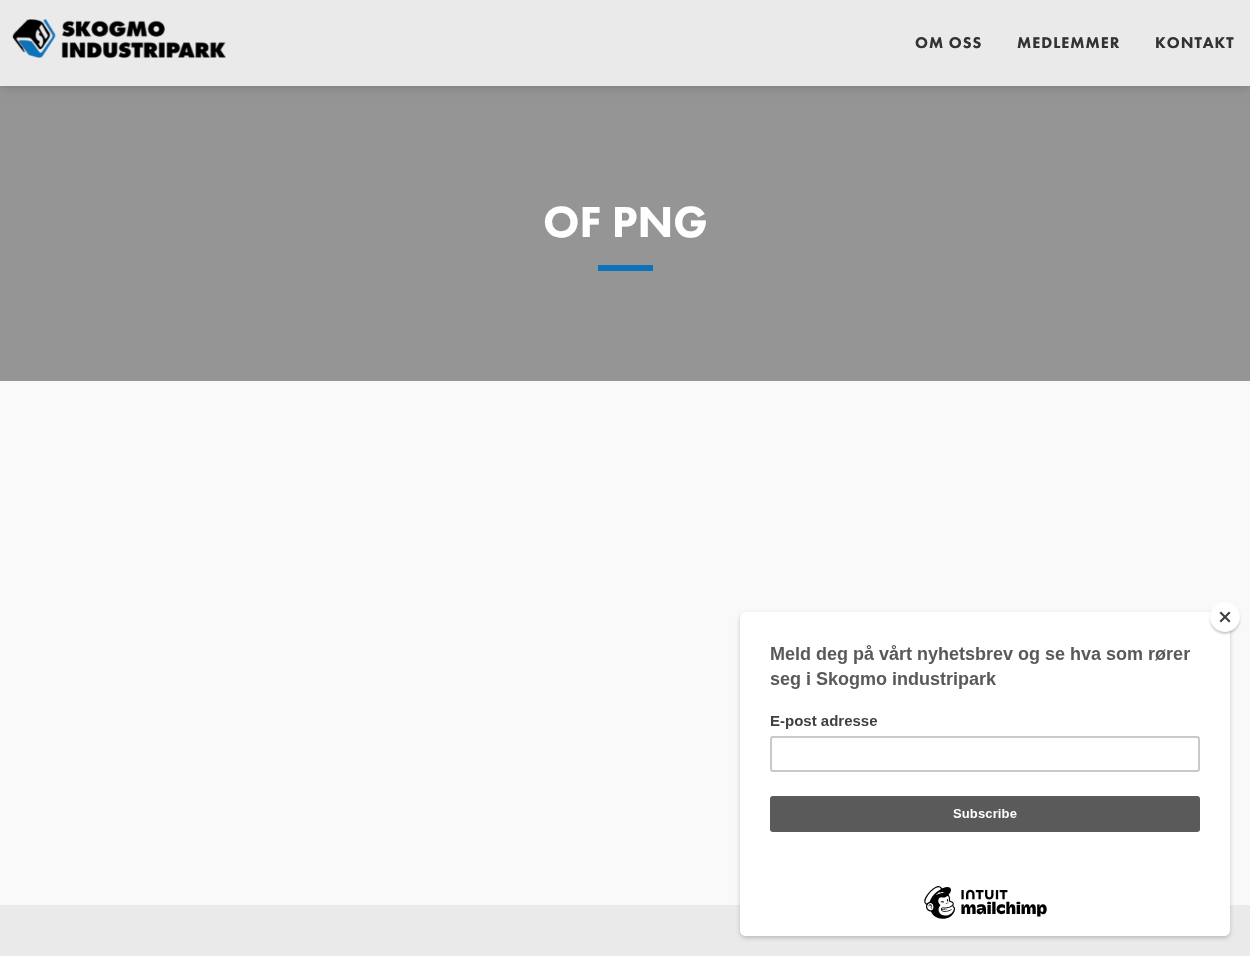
void draw(SkCanvas* canvas) {
    SkPaint paint;
    paint.setAntiAlias(true);
    auto face = [&](const char* family, int weight, float size, bool italic = false) {
        SkFontStyle style(weight, SkFontStyle::kNormal_Width,
            italic ? SkFontStyle::kItalic_Slant : SkFontStyle::kUpright_Slant);
        SkFont result(fontMgr->matchFamilyStyle(family, style), size);
        result.setSubpixel(true);
        return result;
    };
    auto write = [&](const char* s, float x, float y, const SkFont& font, SkColor color) {
        SkPaint ink(SkColor4f::FromColor(color));
        ink.setAntiAlias(true);
        canvas->drawString(s, x, y, font, ink);
    };
    auto writeSpaced = [&](const char* s, float x, float y, const SkFont& font, const SkPaint& ink, float letter, float word) {
        std::vector<SkGlyphID> glyphs(font.countText(s, strlen(s), SkTextEncoding::kUTF8));
        std::vector<float> xs(glyphs.size());
        font.textToGlyphs(s, strlen(s), SkTextEncoding::kUTF8, glyphs);
        font.getXPos(glyphs, xs, x);
        float extra = 0;
        for (size_t i = 0; i < glyphs.size(); i++) {
            xs[i] += extra;
            extra += letter + word * (glyphs[i] == font.unicharToGlyph(' '));
        }
        canvas->drawTextBlob(SkTextBlob::MakeFromPosHGlyphs(glyphs, xs, y, font), 0, 0, ink);
    };
    auto block = [&](float x, float y, float w, float h, SkColor color) {
        SkPaint ink(SkColor4f::FromColor(color));
        ink.setAntiAlias(true);
        canvas->drawRect(SkRect::MakeXYWH(x, y, w, h), ink);
    };
    auto card = [&](float x, float y, float w, float h, float radius, SkColor color) {
        SkPaint ink(SkColor4f::FromColor(color));
        ink.setAntiAlias(true);
        canvas->drawRoundRect(SkRect::MakeXYWH(x, y, w, h), radius, radius, ink);
    };
    auto paste = [&](const char* path, float x, float y, float w, float h) {
        auto image = SkImages::DeferredFromEncodedData(SkData::MakeFromFileName(path));
        canvas->drawImageRect(image, SkRect::MakeXYWH(x, y, w, h), SkSamplingOptions());
    };
    canvas->clear(SkColorSetRGB(249, 249, 249));
    block(0, 86, 1250, 295, SkColorSetRGB(149, 149, 149));
    paint.setColor(SkColorSetARGB(51, 0, 0, 0));
    paint.setMaskFilter(SkMaskFilter::MakeBlur(kNormal_SkBlurStyle, 5));
    canvas->drawRect(SkRect::MakeXYWH(0, 0, 1250, 86), paint);
    paint.setMaskFilter(nullptr);
    block(0, 0, 1250, 86, SkColorSetRGB(234, 234, 234));
    paste("pic1.png", 12, 19, 214, 39);
    auto kFont1 = face("Futura PT", 900, 16);
    paint.setColor(SkColorSetRGB(51, 51, 51));
    writeSpaced("OM OSS", 915, 48, kFont1, paint, 1, 0);
    writeSpaced("MEDLEMMER", 1017, 48, kFont1, paint, 1, 0);
    writeSpaced("KONTAKT", 1155, 48, kFont1, paint, 1, 0);
    auto kFont2 = face("Futura PT", 900, 45);
    write("OF PNG", 543, 237, kFont2, SK_ColorWHITE);
    block(598, 265, 55, 6, SkColorSetRGB(14, 114, 186));
    block(0, 905, 1250, 51, SkColorSetRGB(234, 234, 234));
    paint.setColor(SkColorSetARGB(51, 0, 0, 0));
    paint.setMaskFilter(SkMaskFilter::MakeBlur(kNormal_SkBlurStyle, 2));
    canvas->drawRoundRect(SkRect::MakeXYWH(740, 614, 490, 324), 6, 6, paint);
    paint.setMaskFilter(nullptr);
    card(740, 612, 490, 324, 6, SK_ColorWHITE);
    paint.setMaskFilter(SkMaskFilter::MakeBlur(kNormal_SkBlurStyle, 1));
    canvas->drawRoundRect(SkRect::MakeXYWH(1210, 604, 30, 30), 15, 15, paint);
    paint.setMaskFilter(nullptr);
    paint.setColor(SK_ColorWHITE);
    canvas->drawCircle(1225, 617, 15, paint);
    paint.setColor(SkColorSetRGB(65, 65, 65));
    canvas->drawPath(SkPathBuilder().moveTo(1229, 611.5f).lineTo(1230.5f, 613).lineTo(1221, 622.5f).lineTo(1219.5f, 621).close().detach(), paint);
    canvas->drawPath(SkPathBuilder().moveTo(1219.5f, 613).lineTo(1221, 611.5f).lineTo(1230.5f, 621).lineTo(1229, 622.5f).close().detach(), paint);
    paste("pic2.png", 740, 645, 490, 291);
}
